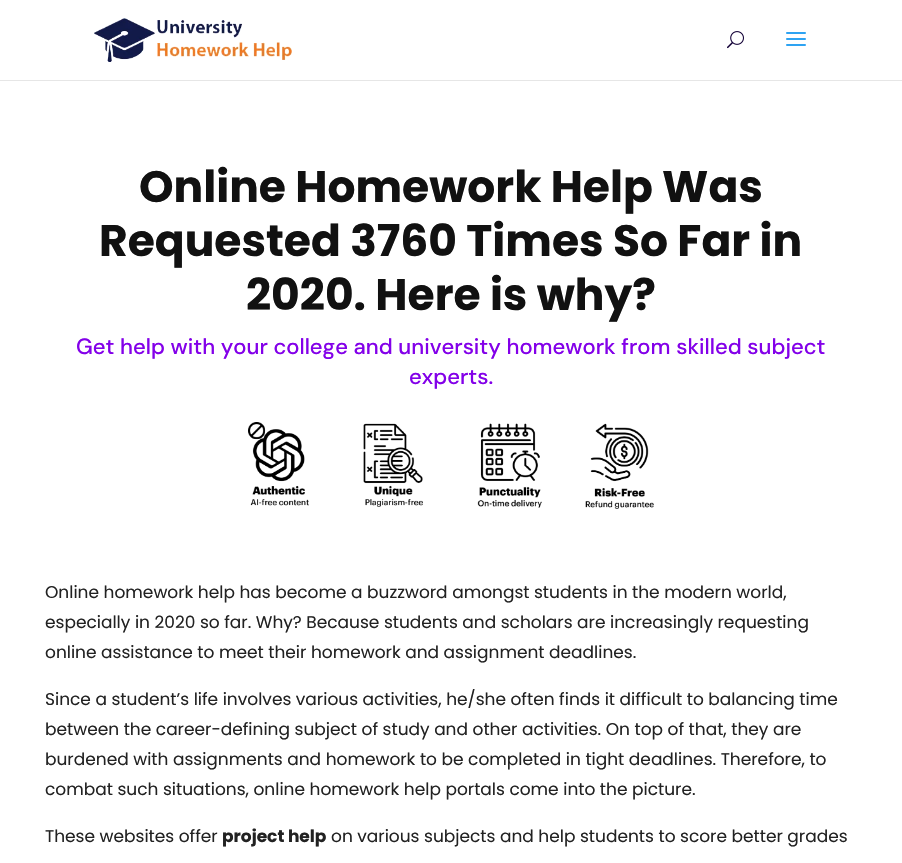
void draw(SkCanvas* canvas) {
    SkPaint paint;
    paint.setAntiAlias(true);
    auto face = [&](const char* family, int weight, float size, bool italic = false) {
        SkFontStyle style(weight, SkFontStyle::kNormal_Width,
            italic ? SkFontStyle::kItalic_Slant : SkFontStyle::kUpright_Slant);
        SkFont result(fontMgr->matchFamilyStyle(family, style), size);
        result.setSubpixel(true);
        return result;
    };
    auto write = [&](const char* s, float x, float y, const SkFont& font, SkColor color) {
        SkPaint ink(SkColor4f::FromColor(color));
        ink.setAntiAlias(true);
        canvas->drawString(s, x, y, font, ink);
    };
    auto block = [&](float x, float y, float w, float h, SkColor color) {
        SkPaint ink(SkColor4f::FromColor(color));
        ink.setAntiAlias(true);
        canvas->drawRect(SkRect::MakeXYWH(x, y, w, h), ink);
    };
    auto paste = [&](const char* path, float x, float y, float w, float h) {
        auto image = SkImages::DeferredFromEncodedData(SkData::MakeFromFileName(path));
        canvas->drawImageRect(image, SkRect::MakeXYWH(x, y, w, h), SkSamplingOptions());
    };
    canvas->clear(SK_ColorWHITE);
    block(0, 80, 902, 1, SkColorSetRGB(230, 230, 230));
    paste("pic1.png", 94, 18, 198, 44);
    paste("pic2.png", 727, 31, 17, 18);
    paste("pic3.png", 786, 32, 20, 14);
    auto kFont1 = face("Poppins", 700, 44);
    write("Online Homework Help Was", 139, 202, kFont1, SkColorSetRGB(17, 17, 17));
    write("Requested 3760 Times So Far in", 99, 256, kFont1, SkColorSetRGB(17, 17, 17));
    write("2020. Here is why?", 246, 310, kFont1, SkColorSetRGB(17, 17, 17));
    auto kFont2 = face("DM Sans", 500, 22);
    write("Get help with your college and university homework from skilled subject", 76, 354, kFont2, SkColorSetRGB(131, 0, 233));
    write("experts.", 409, 384, kFont2, SkColorSetRGB(131, 0, 233));
    paste("pic4.png", 248, 422, 406, 87);
    auto kFont3 = face("Poppins", 400, 17);
    write("Online homework help has become a buzzword amongst students in the modern world,", 45, 598, kFont3, SkColorSetRGB(34, 34, 34));
    write("especially in 2020 so far. Why? Because students and scholars are increasingly requesting", 45, 628, kFont3, SkColorSetRGB(34, 34, 34));
    write("online assistance to meet their homework and assignment deadlines.", 45, 658, kFont3, SkColorSetRGB(34, 34, 34));
    write("Since a student’s life involves various activities, he/she often finds it difficult to balancing time", 45, 705, kFont3, SkColorSetRGB(34, 34, 34));
    write("between the career-defining subject of study and other activities. On top of that, they are", 45, 735, kFont3, SkColorSetRGB(34, 34, 34));
    write("burdened with assignments and homework to be completed in tight deadlines. Therefore, to", 45, 765, kFont3, SkColorSetRGB(34, 34, 34));
    write("combat such situations, online homework help portals come into the picture.", 45, 795, kFont3, SkColorSetRGB(34, 34, 34));
    write("These websites offer", 45, 842, kFont3, SkColorSetRGB(34, 34, 34));
    auto kFont4 = face("Poppins", 700, 17);
    write("project help", 222, 842, kFont4, SkColorSetRGB(34, 34, 34));
    write("on various subjects and help students to score better grades", 331, 842, kFont3, SkColorSetRGB(34, 34, 34));
}
